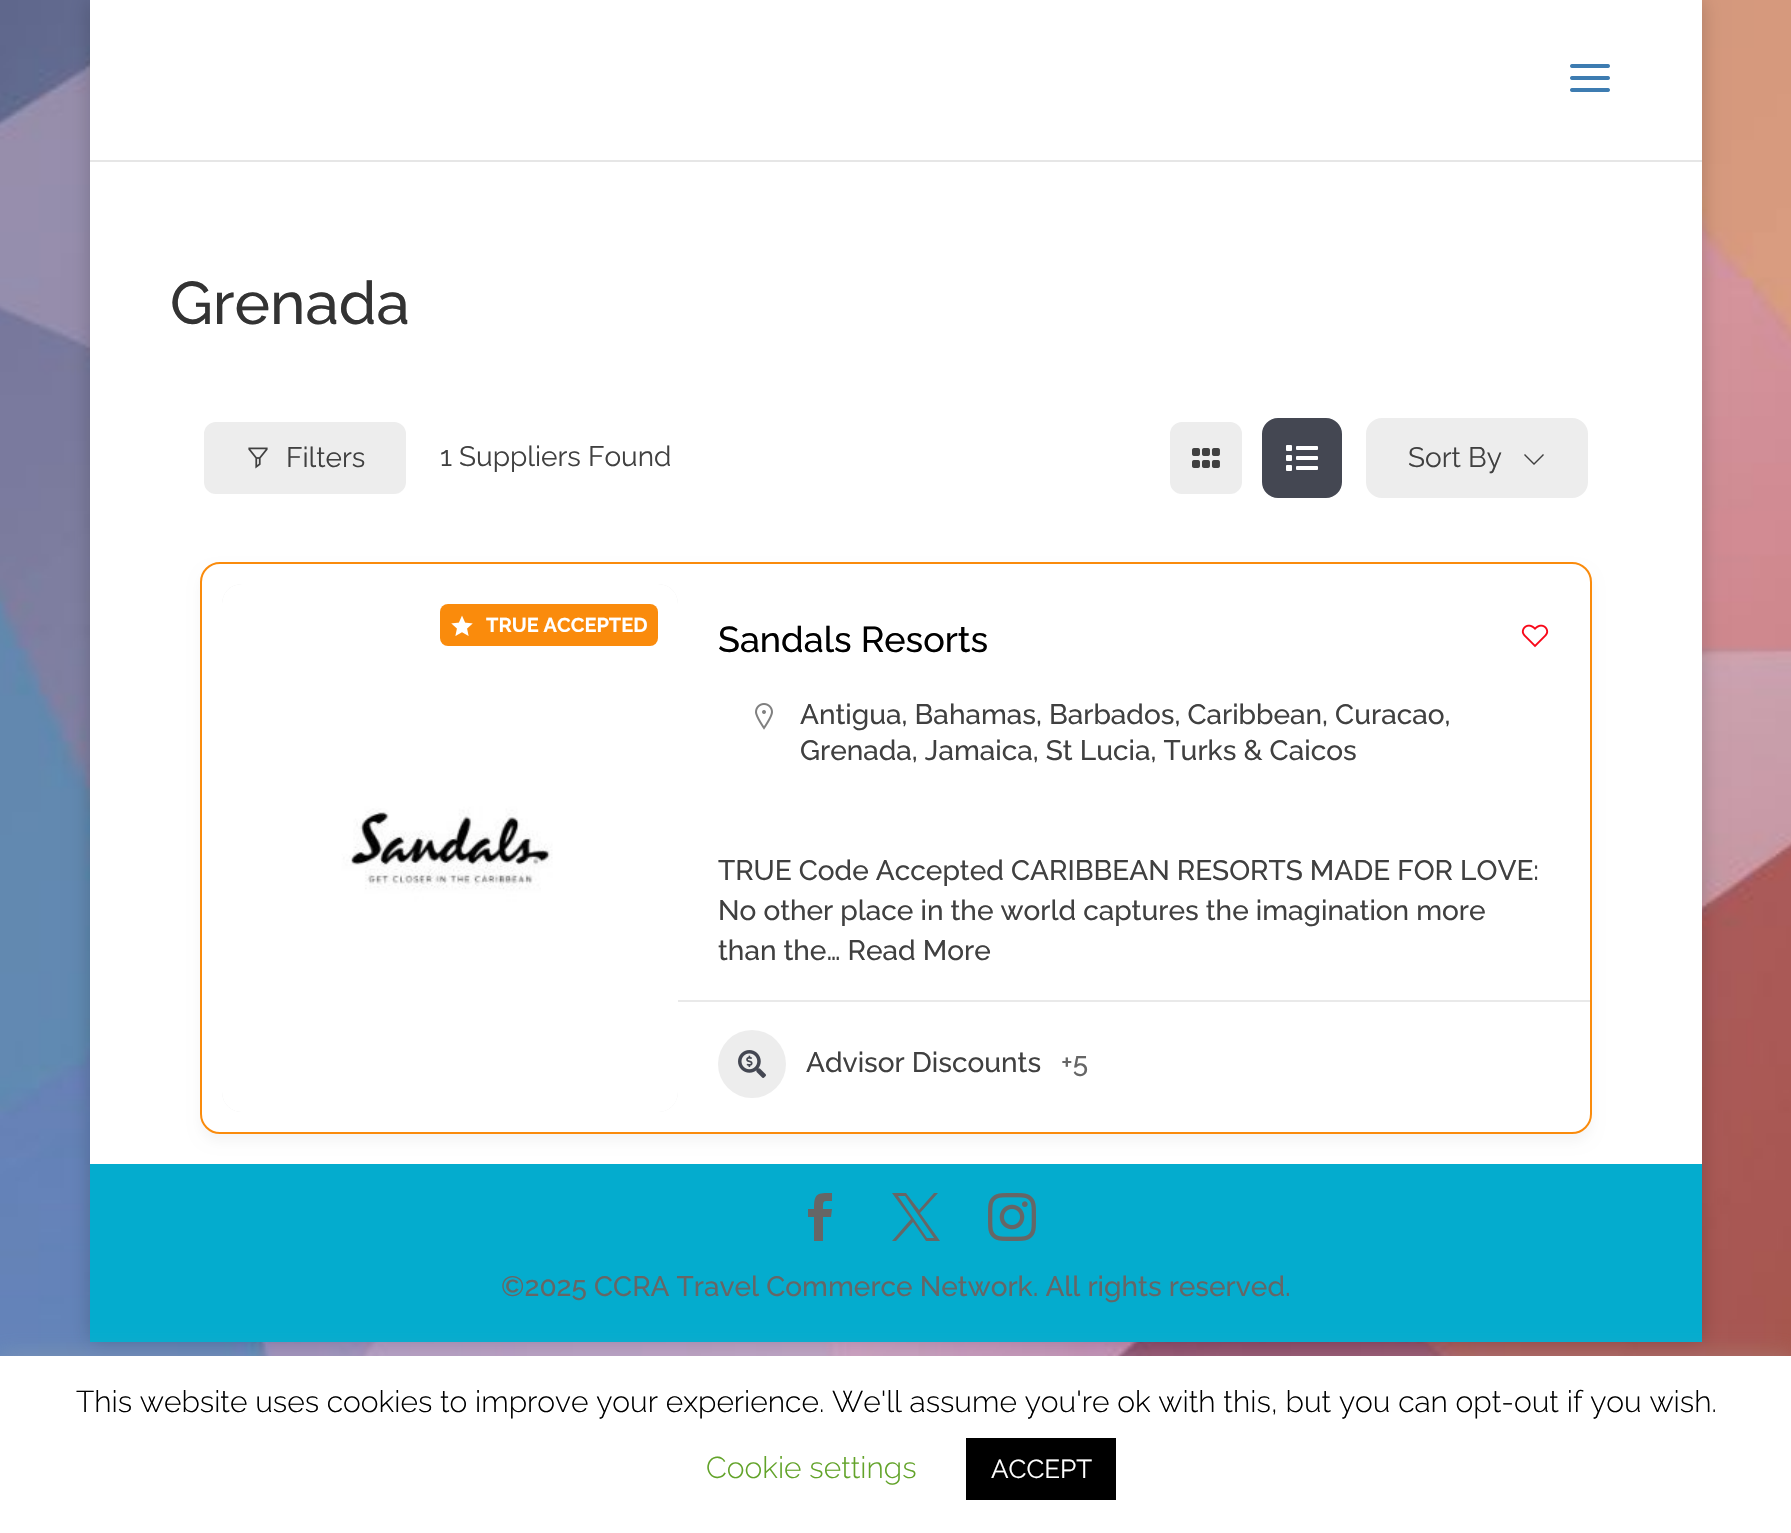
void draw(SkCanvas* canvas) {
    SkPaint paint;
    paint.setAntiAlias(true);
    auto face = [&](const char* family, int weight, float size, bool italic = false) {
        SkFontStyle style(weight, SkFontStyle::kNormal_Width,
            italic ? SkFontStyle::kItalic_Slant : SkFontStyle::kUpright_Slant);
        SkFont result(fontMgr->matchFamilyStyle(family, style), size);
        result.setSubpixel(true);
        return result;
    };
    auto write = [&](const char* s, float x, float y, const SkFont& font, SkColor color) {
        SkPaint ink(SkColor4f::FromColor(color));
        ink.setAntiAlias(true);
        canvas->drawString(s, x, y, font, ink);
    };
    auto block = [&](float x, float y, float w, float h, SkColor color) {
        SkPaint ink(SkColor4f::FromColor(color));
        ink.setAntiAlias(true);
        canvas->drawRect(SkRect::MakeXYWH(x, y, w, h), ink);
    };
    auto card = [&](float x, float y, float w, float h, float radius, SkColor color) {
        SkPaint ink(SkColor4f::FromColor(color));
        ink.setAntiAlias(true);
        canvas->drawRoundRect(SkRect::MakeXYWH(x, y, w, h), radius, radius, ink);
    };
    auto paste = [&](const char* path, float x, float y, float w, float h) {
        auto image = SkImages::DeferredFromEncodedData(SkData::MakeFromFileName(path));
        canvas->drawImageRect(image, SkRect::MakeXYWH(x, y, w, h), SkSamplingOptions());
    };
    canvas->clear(SK_ColorWHITE);
    paste("pic1.png", 0, 0, 1791, 1356);
    paint.setColor(SkColorSetARGB(51, 0, 0, 0));
    paint.setMaskFilter(SkMaskFilter::MakeBlur(kNormal_SkBlurStyle, 10));
    canvas->drawRect(SkRect::MakeXYWH(90, 0, 1612, 1342), paint);
    paint.setMaskFilter(nullptr);
    block(90, 160, 1612, 2, SkColorSetRGB(230, 230, 230));
    block(90, 0, 1612, 160, SK_ColorWHITE);
    paste("pic2.png", 1570, 64, 40, 28);
    block(90, 162, 1612, 1002, SK_ColorWHITE);
    auto kFont1 = face("Raleway", 500, 60);
    write("Grenada", 170, 324, kFont1, SkColorSetRGB(51, 51, 51));
    paint.setColor(SkColorSetRGB(237, 237, 237));
    canvas->drawRoundRect(SkRect::MakeXYWH(202, 420, 206, 76), 14, 14, paint);
    paint.setStyle(SkPaint::kStroke_Style);
    paint.setStrokeWidth(4);
    paint.setColor(SK_ColorWHITE);
    canvas->drawRoundRect(SkRect::MakeXYWH(202, 420, 206, 76), 14, 14, paint);
    paste("pic3.png", 248, 447, 20, 22);
    auto kFont2 = face("Raleway", 400, 28);
    write("Filters", 286, 467, kFont2, SkColorSetRGB(64, 64, 64));
    write("1 Suppliers Found", 440, 466, kFont2, SkColorSetRGB(64, 64, 64));
    paint.setStyle(SkPaint::kFill_Style);
    paint.setColor(SkColorSetRGB(237, 237, 237));
    canvas->drawRoundRect(SkRect::MakeXYWH(1168, 420, 76, 76), 14, 14, paint);
    paint.setStyle(SkPaint::kStroke_Style);
    paint.setColor(SK_ColorWHITE);
    canvas->drawRoundRect(SkRect::MakeXYWH(1168, 420, 76, 76), 14, 14, paint);
    paste("pic4.png", 1192, 448, 28, 20);
    paint.setStyle(SkPaint::kFill_Style);
    paint.setColor(SkColorSetRGB(68, 71, 82));
    canvas->drawRoundRect(SkRect::MakeXYWH(1264, 420, 76, 76), 14, 14, paint);
    paint.setStyle(SkPaint::kStroke_Style);
    canvas->drawRoundRect(SkRect::MakeXYWH(1264, 420, 76, 76), 14, 14, paint);
    paste("pic5.png", 1286, 445, 32, 26);
    paint.setStyle(SkPaint::kFill_Style);
    paint.setColor(SkColorSetRGB(237, 237, 237));
    canvas->drawRoundRect(SkRect::MakeXYWH(1367, 419, 220, 78), 15, 15, paint);
    paint.setStyle(SkPaint::kStroke_Style);
    paint.setStrokeWidth(2);
    canvas->drawRoundRect(SkRect::MakeXYWH(1367, 419, 220, 78), 15, 15, paint);
    write("Sort By", 1408, 467, kFont2, SkColorSetRGB(64, 64, 64));
    paint.setStyle(SkPaint::kFill_Style);
    paint.setColor(SkColorSetRGB(64, 64, 64));
    canvas->drawPath(SkPathBuilder().moveTo(1525, 454).lineTo(1524, 455).lineTo(1534, 465).lineTo(1544, 455).lineTo(1543, 454).lineTo(1534, 463).close().detach(), paint);
    paint.setColor(SkColorSetARGB(10, 0, 0, 0));
    paint.setMaskFilter(SkMaskFilter::MakeBlur(kNormal_SkBlurStyle, 6));
    canvas->drawRoundRect(SkRect::MakeXYWH(200, 570, 1392, 572), 20, 20, paint);
    paint.setMaskFilter(nullptr);
    paint.setColor(SK_ColorWHITE);
    canvas->drawRoundRect(SkRect::MakeXYWH(201, 563, 1390, 570), 19, 19, paint);
    paint.setStyle(SkPaint::kStroke_Style);
    paint.setColor(SkColorSetRGB(250, 139, 12));
    canvas->drawRoundRect(SkRect::MakeXYWH(201, 563, 1390, 570), 19, 19, paint);
    card(222, 584, 456, 528, 20, SkColorSetRGB(244, 244, 244));
    paste("pic6.png", 222, 584, 456, 528);
    card(440, 604, 218, 42, 8, SkColorSetRGB(250, 139, 12));
    paste("pic7.png", 451, 615, 22, 21);
    auto kFont3 = face("Raleway", 700, 20);
    write("TRUE ACCEPTED", 486, 632, kFont3, SK_ColorWHITE);
    auto kFont4 = face("Raleway", 500, 36);
    write("Sandals Resorts", 718, 652, kFont4, SK_ColorBLACK);
    paste("pic8.png", 1521, 624, 28, 24);
    paste("pic9.png", 755, 703, 18, 27);
    auto kFont5 = face("Raleway", 500, 28);
    write("Antigua, Bahamas, Barbados, Caribbean, Curacao,", 800, 724, kFont5, SkColorSetRGB(64, 64, 64));
    write("Grenada, Jamaica, St Lucia, Turks & Caicos", 800, 760, kFont5, SkColorSetRGB(64, 64, 64));
    write("TRUE Code Accepted CARIBBEAN RESORTS MADE FOR LOVE:", 718, 880, kFont5, SkColorSetRGB(64, 64, 64));
    write("No other place in the world captures the imagination more", 718, 920, kFont5, SkColorSetRGB(64, 64, 64));
    write("than the… Read More", 718, 960, kFont5, SkColorSetRGB(64, 64, 64));
    block(678, 1000, 912, 2, SkColorSetRGB(233, 233, 233));
    paint.setStyle(SkPaint::kFill_Style);
    paint.setColor(SkColorSetRGB(237, 237, 237));
    canvas->drawCircle(752, 1064, 34, paint);
    paste("pic10.png", 738, 1050, 28, 28);
    write("Advisor Discounts", 806, 1072, kFont5, SkColorSetRGB(64, 64, 64));
    write("+5", 1061, 1072, kFont5, SkColorSetRGB(102, 102, 102));
    block(90, 1164, 1612, 178, SkColorSetRGB(4, 172, 206));
    paint.setColor(SkColorSetRGB(102, 102, 102));
    canvas->drawPath(SkPathBuilder().moveTo(814, 1241).lineTo(823, 1241).lineTo(823, 1217).lineTo(831, 1217).lineTo(832, 1209).lineTo(823, 1209).cubicTo(823, 1200, 823, 1201, 832, 1201).lineTo(832, 1193).cubicTo(817, 1193, 814, 1193, 814, 1209).lineTo(808, 1209).lineTo(808, 1217).lineTo(814, 1217).close().detach(), paint);
    canvas->drawPath(SkPathBuilder().moveTo(892, 1193).lineTo(911, 1219).lineTo(892, 1241).lineTo(896, 1241).lineTo(913, 1222).lineTo(926, 1241).lineTo(940, 1241).lineTo(920, 1213).lineTo(938, 1193).lineTo(934, 1193).lineTo(919, 1210).lineTo(906, 1193).close().moveTo(898, 1196).lineTo(905, 1196).lineTo(934, 1238).lineTo(927, 1238).close().detach(), paint);
    paste("pic11.png", 988, 1193, 48, 48);
    write("©2025 CCRA Travel Commerce Network. All rights reserved.", 501, 1296, kFont5, SkColorSetRGB(102, 102, 102));
    paint.setColor(SkColorSetARGB(77, 172, 171, 171));
    paint.setMaskFilter(SkMaskFilter::MakeBlur(kNormal_SkBlurStyle, 10));
    canvas->drawRect(SkRect::MakeXYWH(0, 1354, 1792, 178), paint);
    paint.setMaskFilter(nullptr);
    block(0, 1356, 1791, 177, SK_ColorWHITE);
    auto kFont6 = face("Raleway", 300, 30);
    write("This website uses cookies to improve your experience. We'll assume you're ok with this, but you can opt-out if you wish.", 76, 1412, kFont6, SK_ColorBLACK);
    write("Cookie settings", 706, 1478, kFont6, SkColorSetRGB(98, 163, 41));
    block(966, 1438, 150, 62, SK_ColorBLACK);
    auto kFont7 = face("Raleway", 400, 26);
    write("ACCEPT", 991, 1478, kFont7, SK_ColorWHITE);
}
